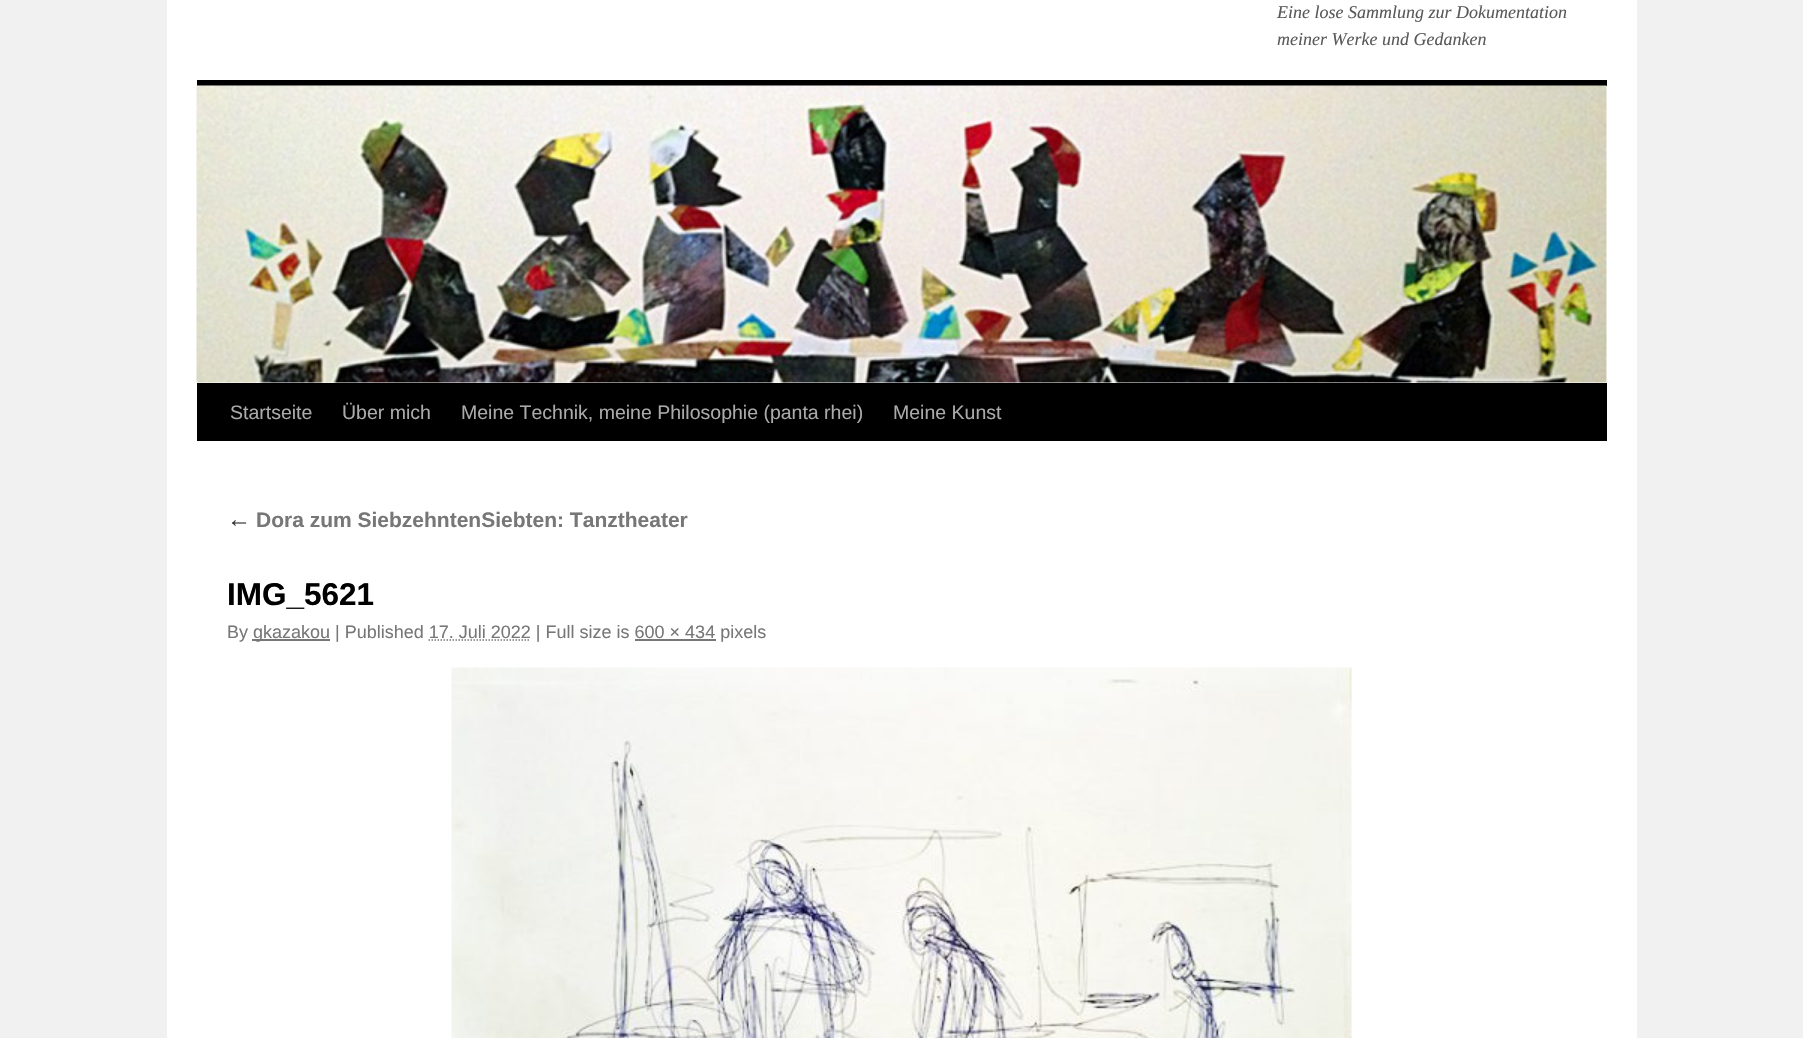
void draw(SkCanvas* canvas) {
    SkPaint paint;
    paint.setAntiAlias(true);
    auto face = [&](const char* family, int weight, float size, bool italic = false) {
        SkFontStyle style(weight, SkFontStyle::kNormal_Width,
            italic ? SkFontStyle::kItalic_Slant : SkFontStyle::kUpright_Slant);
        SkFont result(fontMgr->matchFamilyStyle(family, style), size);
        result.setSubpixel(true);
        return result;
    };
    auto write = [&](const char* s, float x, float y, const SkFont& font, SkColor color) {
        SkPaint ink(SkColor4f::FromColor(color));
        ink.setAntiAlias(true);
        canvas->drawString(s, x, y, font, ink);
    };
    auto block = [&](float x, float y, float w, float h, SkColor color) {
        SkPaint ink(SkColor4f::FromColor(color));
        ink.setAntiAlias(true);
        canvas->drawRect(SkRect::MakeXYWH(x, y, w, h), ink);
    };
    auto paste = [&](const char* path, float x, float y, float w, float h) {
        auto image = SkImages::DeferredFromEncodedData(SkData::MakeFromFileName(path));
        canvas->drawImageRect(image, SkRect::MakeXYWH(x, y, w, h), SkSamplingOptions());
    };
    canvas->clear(SkColorSetRGB(241, 241, 241));
    block(167, 0, 1470, 1038, SK_ColorWHITE);
    auto kFont1 = face("Liberation Serif", 400, 18, true);
    write("Eine lose Sammlung zur Dokumentation", 1277, 18, kFont1, SkColorSetRGB(89, 89, 89));
    write("meiner Werke und Gedanken", 1277, 45, kFont1, SkColorSetRGB(89, 89, 89));
    block(197, 80, 1410, 6, SK_ColorBLACK);
    block(197, 383, 1410, 58, SK_ColorBLACK);
    paste("pic1.png", 196, 85, 1411, 298);
    auto kFont2 = face("Liberation Sans", 400, 19.5f);
    write("Startseite", 230, 419, kFont2, SkColorSetRGB(170, 170, 170));
    write("Über mich", 342, 419, kFont2, SkColorSetRGB(170, 170, 170));
    write("Meine Technik, meine Philosophie (panta rhei)", 461, 419, kFont2, SkColorSetRGB(170, 170, 170));
    write("Meine Kunst", 893, 419, kFont2, SkColorSetRGB(170, 170, 170));
    auto kFont3 = face("Liberation Serif", 400, 24, true);
    write("←", 227, 527, kFont3, SkColorSetRGB(51, 51, 51));
    auto kFont4 = face("Liberation Sans", 700, 21);
    write("Dora zum SiebzehntenSiebten: Tanztheater", 256, 527, kFont4, SkColorSetRGB(119, 119, 119));
    auto kFont5 = face("Liberation Sans", 700, 31.5f);
    write("IMG_5621", 227, 605, kFont5, SK_ColorBLACK);
    auto kFont6 = face("Liberation Sans", 400, 18);
    write("By", 227, 638, kFont6, SkColorSetRGB(119, 119, 119));
    block(252, 639, 78, 2, SkColorSetRGB(119, 119, 119));
    write("gkazakou | Published 17. Juli 2022 | Full size is 600 × 434 pixels", 253, 638, kFont6, SkColorSetRGB(119, 119, 119));
    paint.setStyle(SkPaint::kStroke_Style);
    paint.setStrokeWidth(1.5f);
    paint.setColor(SkColorSetRGB(119, 119, 119));
    paint.setPathEffect(SkDashPathEffect::Make({{1.5f, 1.5f}}, 0));
    canvas->drawPath(SkPathBuilder().moveTo(428.5f, 640).lineTo(530.5f, 640).detach(), paint);
    paint.setPathEffect(nullptr);
    block(635, 639, 81, 2, SkColorSetRGB(119, 119, 119));
    paste("pic2.png", 451, 667, 901, 371);
}
